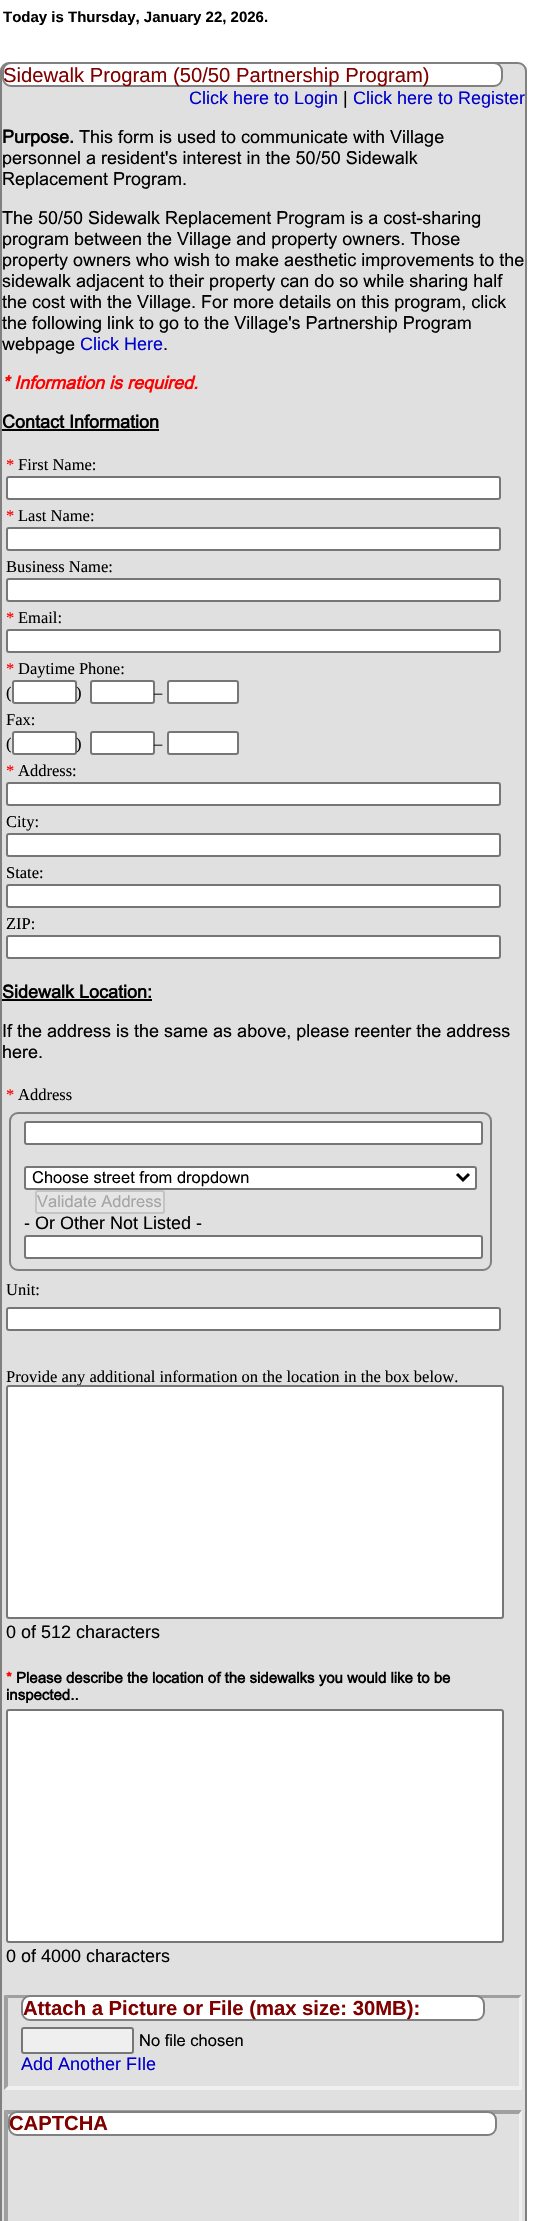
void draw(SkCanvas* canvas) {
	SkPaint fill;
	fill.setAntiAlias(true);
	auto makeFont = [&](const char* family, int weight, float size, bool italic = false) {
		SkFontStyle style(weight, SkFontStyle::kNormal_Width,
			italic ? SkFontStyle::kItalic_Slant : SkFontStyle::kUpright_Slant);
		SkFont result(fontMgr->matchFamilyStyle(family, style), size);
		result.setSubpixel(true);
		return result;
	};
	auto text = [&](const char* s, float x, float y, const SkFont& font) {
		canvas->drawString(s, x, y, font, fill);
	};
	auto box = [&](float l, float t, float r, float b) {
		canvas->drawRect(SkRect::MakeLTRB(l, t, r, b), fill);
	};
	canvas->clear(0xFFFFFFFF);
	fill.setColor(0xFFE0E0E0);
	canvas->drawRoundRect(SkRect::MakeLTRB(1, 63, 526, 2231), 8, 8, fill);
	fill.setStyle(SkPaint::kStroke_Style);
	fill.setStrokeWidth(2);
	fill.setColor(0xFF808080);
	canvas->drawRoundRect(SkRect::MakeLTRB(1, 63, 526, 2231), 8, 8, fill);
	fill.setStyle(SkPaint::kFill_Style);
	fill.setColor(0xFFFFFFFF);
	canvas->drawRoundRect(SkRect::MakeLTRB(3, 63, 502, 86), 8, 8, fill);
	fill.setStyle(SkPaint::kStroke_Style);
	fill.setColor(0xFF808080);
	canvas->drawRoundRect(SkRect::MakeLTRB(3, 63, 502, 86), 8, 8, fill);
	fill.setStyle(SkPaint::kFill_Style);
	fill.setColor(0xFF000000);
	box(2, 429, 159, 431);
	fill.setColor(0xFFFFFFFF);
	canvas->drawRoundRect(SkRect::MakeLTRB(7, 477, 500, 499), 2, 2, fill);
	fill.setStyle(SkPaint::kStroke_Style);
	fill.setColor(0xFF767676);
	canvas->drawRoundRect(SkRect::MakeLTRB(7, 477, 500, 499), 2, 2, fill);
	fill.setStyle(SkPaint::kFill_Style);
	fill.setColor(0xFFFFFFFF);
	canvas->drawRoundRect(SkRect::MakeLTRB(7, 528, 500, 550), 2, 2, fill);
	fill.setStyle(SkPaint::kStroke_Style);
	fill.setColor(0xFF767676);
	canvas->drawRoundRect(SkRect::MakeLTRB(7, 528, 500, 550), 2, 2, fill);
	fill.setStyle(SkPaint::kFill_Style);
	fill.setColor(0xFFFFFFFF);
	canvas->drawRoundRect(SkRect::MakeLTRB(7, 579, 500, 601), 2, 2, fill);
	fill.setStyle(SkPaint::kStroke_Style);
	fill.setColor(0xFF767676);
	canvas->drawRoundRect(SkRect::MakeLTRB(7, 579, 500, 601), 2, 2, fill);
	fill.setStyle(SkPaint::kFill_Style);
	fill.setColor(0xFFFFFFFF);
	canvas->drawRoundRect(SkRect::MakeLTRB(7, 630, 500, 652), 2, 2, fill);
	fill.setStyle(SkPaint::kStroke_Style);
	fill.setColor(0xFF767676);
	canvas->drawRoundRect(SkRect::MakeLTRB(7, 630, 500, 652), 2, 2, fill);
	fill.setStyle(SkPaint::kFill_Style);
	fill.setColor(0xFFFFFFFF);
	canvas->drawRoundRect(SkRect::MakeLTRB(13, 681, 76, 703), 2, 2, fill);
	fill.setStyle(SkPaint::kStroke_Style);
	fill.setColor(0xFF767676);
	canvas->drawRoundRect(SkRect::MakeLTRB(13, 681, 76, 703), 2, 2, fill);
	fill.setStyle(SkPaint::kFill_Style);
	fill.setColor(0xFFFFFFFF);
	canvas->drawRoundRect(SkRect::MakeLTRB(91, 681, 154, 703), 2, 2, fill);
	fill.setStyle(SkPaint::kStroke_Style);
	fill.setColor(0xFF767676);
	canvas->drawRoundRect(SkRect::MakeLTRB(91, 681, 154, 703), 2, 2, fill);
	fill.setStyle(SkPaint::kFill_Style);
	fill.setColor(0xFFFFFFFF);
	canvas->drawRoundRect(SkRect::MakeLTRB(168, 681, 238, 703), 2, 2, fill);
	fill.setStyle(SkPaint::kStroke_Style);
	fill.setColor(0xFF767676);
	canvas->drawRoundRect(SkRect::MakeLTRB(168, 681, 238, 703), 2, 2, fill);
	fill.setStyle(SkPaint::kFill_Style);
	fill.setColor(0xFFFFFFFF);
	canvas->drawRoundRect(SkRect::MakeLTRB(13, 732, 76, 754), 2, 2, fill);
	fill.setStyle(SkPaint::kStroke_Style);
	fill.setColor(0xFF767676);
	canvas->drawRoundRect(SkRect::MakeLTRB(13, 732, 76, 754), 2, 2, fill);
	fill.setStyle(SkPaint::kFill_Style);
	fill.setColor(0xFFFFFFFF);
	canvas->drawRoundRect(SkRect::MakeLTRB(91, 732, 154, 754), 2, 2, fill);
	fill.setStyle(SkPaint::kStroke_Style);
	fill.setColor(0xFF767676);
	canvas->drawRoundRect(SkRect::MakeLTRB(91, 732, 154, 754), 2, 2, fill);
	fill.setStyle(SkPaint::kFill_Style);
	fill.setColor(0xFFFFFFFF);
	canvas->drawRoundRect(SkRect::MakeLTRB(168, 732, 238, 754), 2, 2, fill);
	fill.setStyle(SkPaint::kStroke_Style);
	fill.setColor(0xFF767676);
	canvas->drawRoundRect(SkRect::MakeLTRB(168, 732, 238, 754), 2, 2, fill);
	fill.setStyle(SkPaint::kFill_Style);
	fill.setColor(0xFFFFFFFF);
	canvas->drawRoundRect(SkRect::MakeLTRB(7, 783, 500, 805), 2, 2, fill);
	fill.setStyle(SkPaint::kStroke_Style);
	fill.setColor(0xFF767676);
	canvas->drawRoundRect(SkRect::MakeLTRB(7, 783, 500, 805), 2, 2, fill);
	fill.setStyle(SkPaint::kFill_Style);
	fill.setColor(0xFFFFFFFF);
	canvas->drawRoundRect(SkRect::MakeLTRB(7, 834, 500, 856), 2, 2, fill);
	fill.setStyle(SkPaint::kStroke_Style);
	fill.setColor(0xFF767676);
	canvas->drawRoundRect(SkRect::MakeLTRB(7, 834, 500, 856), 2, 2, fill);
	fill.setStyle(SkPaint::kFill_Style);
	fill.setColor(0xFFFFFFFF);
	canvas->drawRoundRect(SkRect::MakeLTRB(7, 885, 500, 907), 2, 2, fill);
	fill.setStyle(SkPaint::kStroke_Style);
	fill.setColor(0xFF767676);
	canvas->drawRoundRect(SkRect::MakeLTRB(7, 885, 500, 907), 2, 2, fill);
	fill.setStyle(SkPaint::kFill_Style);
	fill.setColor(0xFFFFFFFF);
	canvas->drawRoundRect(SkRect::MakeLTRB(7, 936, 500, 958), 2, 2, fill);
	fill.setStyle(SkPaint::kStroke_Style);
	fill.setColor(0xFF767676);
	canvas->drawRoundRect(SkRect::MakeLTRB(7, 936, 500, 958), 2, 2, fill);
	fill.setStyle(SkPaint::kFill_Style);
	fill.setColor(0xFF000000);
	box(2, 999, 152, 1001);
	fill.setStyle(SkPaint::kStroke_Style);
	fill.setColor(0xFF808080);
	canvas->drawRoundRect(SkRect::MakeLTRB(10, 1113, 491, 1270), 8, 8, fill);
	fill.setStyle(SkPaint::kFill_Style);
	fill.setColor(0xFFFFFFFF);
	canvas->drawRoundRect(SkRect::MakeLTRB(25, 1122, 482, 1144), 2, 2, fill);
	fill.setStyle(SkPaint::kStroke_Style);
	fill.setColor(0xFF767676);
	canvas->drawRoundRect(SkRect::MakeLTRB(25, 1122, 482, 1144), 2, 2, fill);
	fill.setStyle(SkPaint::kFill_Style);
	fill.setColor(0xFFFFFFFF);
	canvas->drawRoundRect(SkRect::MakeLTRB(25, 1167, 476, 1189), 2, 2, fill);
	fill.setStyle(SkPaint::kStroke_Style);
	fill.setColor(0xFF767676);
	canvas->drawRoundRect(SkRect::MakeLTRB(25, 1167, 476, 1189), 2, 2, fill);
	fill.setStrokeWidth(3);
	fill.setColor(0xFF000000);
	canvas->drawPath(SkPathBuilder().moveTo(457, 1174).lineTo(463, 1180).lineTo(469, 1174).detach(), fill);
	fill.setStyle(SkPaint::kFill_Style);
	fill.setColor(0xFFE5E5E5);
	canvas->drawRoundRect(SkRect::MakeLTRB(36, 1191, 164, 1213), 2, 2, fill);
	fill.setStyle(SkPaint::kStroke_Style);
	fill.setStrokeWidth(2);
	fill.setColor(0xFFC4C4C4);
	canvas->drawRoundRect(SkRect::MakeLTRB(36, 1191, 164, 1213), 2, 2, fill);
	fill.setStyle(SkPaint::kFill_Style);
	fill.setColor(0xFFFFFFFF);
	canvas->drawRoundRect(SkRect::MakeLTRB(25, 1236, 482, 1258), 2, 2, fill);
	fill.setStyle(SkPaint::kStroke_Style);
	fill.setColor(0xFF767676);
	canvas->drawRoundRect(SkRect::MakeLTRB(25, 1236, 482, 1258), 2, 2, fill);
	fill.setStyle(SkPaint::kFill_Style);
	fill.setColor(0xFFFFFFFF);
	canvas->drawRoundRect(SkRect::MakeLTRB(7, 1308, 500, 1330), 2, 2, fill);
	fill.setStyle(SkPaint::kStroke_Style);
	fill.setColor(0xFF767676);
	canvas->drawRoundRect(SkRect::MakeLTRB(7, 1308, 500, 1330), 2, 2, fill);
	fill.setStyle(SkPaint::kFill_Style);
	fill.setColor(0xFFFFFFFF);
	canvas->drawRoundRect(SkRect::MakeLTRB(7, 1710, 503, 1942), 2, 2, fill);
	fill.setStyle(SkPaint::kStroke_Style);
	fill.setColor(0xFF767676);
	canvas->drawRoundRect(SkRect::MakeLTRB(7, 1710, 503, 1942), 2, 2, fill);
	fill.setStyle(SkPaint::kFill_Style);
	fill.setColor(0xFF9F9F9F);
	canvas->drawPath(SkPathBuilder().moveTo(4, 1995).lineTo(522, 1995).lineTo(519, 1998).lineTo(8, 1998).close().detach(), fill);
	fill.setColor(0xFFEFEFEF);
	canvas->drawPath(SkPathBuilder().moveTo(522, 1995).lineTo(522, 2090).lineTo(519, 2086).lineTo(519, 1998).close().detach(), fill);
	canvas->drawPath(SkPathBuilder().moveTo(522, 2090).lineTo(4, 2090).lineTo(8, 2086).lineTo(519, 2086).close().detach(), fill);
	fill.setColor(0xFF9F9F9F);
	canvas->drawPath(SkPathBuilder().moveTo(4, 2090).lineTo(4, 1995).lineTo(8, 1998).lineTo(8, 2086).close().detach(), fill);
	fill.setColor(0xFFFFFFFF);
	canvas->drawRoundRect(SkRect::MakeLTRB(22, 1996, 484, 2020), 8, 8, fill);
	fill.setStyle(SkPaint::kStroke_Style);
	fill.setColor(0xFF808080);
	canvas->drawRoundRect(SkRect::MakeLTRB(22, 1996, 484, 2020), 8, 8, fill);
	fill.setStyle(SkPaint::kFill_Style);
	fill.setColor(0xFFEFEFEF);
	canvas->drawRoundRect(SkRect::MakeLTRB(22, 2028, 133, 2053), 2, 2, fill);
	fill.setStyle(SkPaint::kStroke_Style);
	fill.setColor(0xFF767676);
	canvas->drawRoundRect(SkRect::MakeLTRB(22, 2028, 133, 2053), 2, 2, fill);
	fill.setStyle(SkPaint::kFill_Style);
	fill.setColor(0xFF9F9F9F);
	canvas->drawPath(SkPathBuilder().moveTo(4, 2110).lineTo(522, 2110).lineTo(519, 2114).lineTo(8, 2114).close().detach(), fill);
	fill.setColor(0xFFEFEFEF);
	canvas->drawPath(SkPathBuilder().moveTo(522, 2110).lineTo(522, 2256).lineTo(519, 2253).lineTo(519, 2114).close().detach(), fill);
	fill.setColor(0xFF9F9F9F);
	canvas->drawPath(SkPathBuilder().moveTo(4, 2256).lineTo(4, 2110).lineTo(8, 2114).lineTo(8, 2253).close().detach(), fill);
	fill.setColor(0xFFFFFFFF);
	canvas->drawRoundRect(SkRect::MakeLTRB(9, 2112, 496, 2135), 8, 8, fill);
	fill.setStyle(SkPaint::kStroke_Style);
	fill.setColor(0xFF808080);
	canvas->drawRoundRect(SkRect::MakeLTRB(9, 2112, 496, 2135), 8, 8, fill);
	auto font1 = makeFont("Liberation Sans", 700, 15);
	fill.setStyle(SkPaint::kFill_Style);
	fill.setColor(0xFF000000);
	text("Today is Thursday, January 22, 2026.", 3, 22, font1);
	auto font2 = makeFont("Liberation Sans", 400, 20.25f);
	fill.setColor(0xFF800000);
	text("Sidewalk Program (50/50 Partnership Program)", 3, 82, font2);
	auto font3 = makeFont("Liberation Sans", 400, 18);
	fill.setColor(0xFF0000CC);
	text("Click here to Login", 189, 104, font3);
	fill.setColor(0xFF000000);
	text("|", 343, 104, font3);
	fill.setColor(0xFF0000CC);
	text("Click here to Register", 353, 104, font3);
	auto font4 = makeFont("Arial", 700, 18);
	fill.setColor(0xFF000000);
	text("Purpose.", 2, 143, font4);
	auto font5 = makeFont("Arial", 400, 18);
	text("This form is used to communicate with Village", 79, 143, font5);
	text("personnel a resident's interest in the 50/50 Sidewalk", 2, 164, font5);
	text("Replacement Program.", 2, 185, font5);
	text("The 50/50 Sidewalk Replacement Program is a cost-sharing", 2, 224, font5);
	text("program between the Village and property owners. Those", 2, 245, font5);
	text("property owners who wish to make aesthetic improvements to the", 2, 266, font5);
	text("sidewalk adjacent to their property can do so while sharing half", 2, 287, font5);
	text("the cost with the Village. For more details on this program, click", 2, 308, font5);
	text("the following link to go to the Village's Partnership Program", 2, 329, font5);
	text("webpage", 2, 350, font5);
	fill.setColor(0xFF0000CC);
	text("Click Here", 80, 350, font3);
	fill.setColor(0xFF000000);
	text(".", 163, 350, font5);
	auto font6 = makeFont("Arial", 700, 18, true);
	fill.setColor(0xFFFF0000);
	text("* Information is required.", 2, 389, font6);
	fill.setColor(0xFF000000);
	text("Contact Information", 2, 428, font4);
	auto font7 = makeFont("Liberation Serif", 400, 16.5f);
	fill.setColor(0xFFFF0000);
	text("*", 6, 470, font7);
	fill.setColor(0xFF000000);
	text("First Name:", 18, 470, font7);
	fill.setColor(0xFFFF0000);
	text("*", 6, 521, font7);
	fill.setColor(0xFF000000);
	text("Last Name:", 18, 521, font7);
	text("Business Name:", 6, 572, font7);
	fill.setColor(0xFFFF0000);
	text("*", 6, 623, font7);
	fill.setColor(0xFF000000);
	text("Email:", 18, 623, font7);
	fill.setColor(0xFFFF0000);
	text("*", 6, 674, font7);
	fill.setColor(0xFF000000);
	text("Daytime Phone:", 18, 674, font7);
	text("(", 6, 698, font7);
	text(")", 76, 698, font7);
	text("–", 154, 698, font7);
	text("Fax:", 6, 725, font7);
	text("(", 6, 749, font7);
	text(")", 76, 749, font7);
	text("–", 154, 749, font7);
	fill.setColor(0xFFFF0000);
	text("*", 6, 776, font7);
	fill.setColor(0xFF000000);
	text("Address:", 18, 776, font7);
	text("City:", 6, 827, font7);
	text("State:", 6, 878, font7);
	text("ZIP:", 6, 929, font7);
	text("Sidewalk Location:", 2, 998, font4);
	text("If the address is the same as above, please reenter the address", 2, 1037, font5);
	text("here.", 2, 1058, font5);
	fill.setColor(0xFFFF0000);
	text("*", 6, 1100, font7);
	fill.setColor(0xFF000000);
	text("Address", 18, 1100, font7);
	auto font8 = makeFont("Arial", 400, 16.5f);
	text("Choose street from dropdown", 32, 1183, font8);
	fill.setColor(0xFFA5A5A5);
	text("Validate Address", 37, 1207, font8);
	fill.setColor(0xFF000000);
	text("- Or Other Not Listed -", 24, 1229, font3);
	text("Unit:", 6, 1295, font7);
	text("Provide any additional information on the location in the box below.", 6, 1382, font7);
	fill.setColor(0xFFFFFFFF);
	canvas->drawRoundRect(SkRect::MakeLTRB(7, 1386, 503, 1618), 2, 2, fill);
	fill.setStyle(SkPaint::kStroke_Style);
	fill.setColor(0xFF767676);
	canvas->drawRoundRect(SkRect::MakeLTRB(7, 1386, 503, 1618), 2, 2, fill);
	fill.setStyle(SkPaint::kFill_Style);
	fill.setColor(0xFF000000);
	text("0 of 512 characters", 6, 1638, font3);
	auto font9 = makeFont("Arial", 700, 15);
	fill.setColor(0xFFFF0000);
	text("*", 6, 1683, font9);
	fill.setColor(0xFF000000);
	text("Please describe the location of the sidewalks you would like to be", 16, 1683, font9);
	text("inspected..", 6, 1700, font9);
	text("0 of 4000 characters", 6, 1962, font3);
	auto font10 = makeFont("Liberation Sans", 700, 20.25f);
	fill.setColor(0xFF800000);
	text("Attach a Picture or File (max size: 30MB):", 23, 2015, font10);
	fill.setColor(0xFF000000);
	text("No file chosen", 139, 2046, font8);
	fill.setColor(0xFF0000CC);
	text("Add Another FIle", 21, 2070, font3);
	fill.setColor(0xFF800000);
	text("CAPTCHA", 9, 2130, font10);
}
